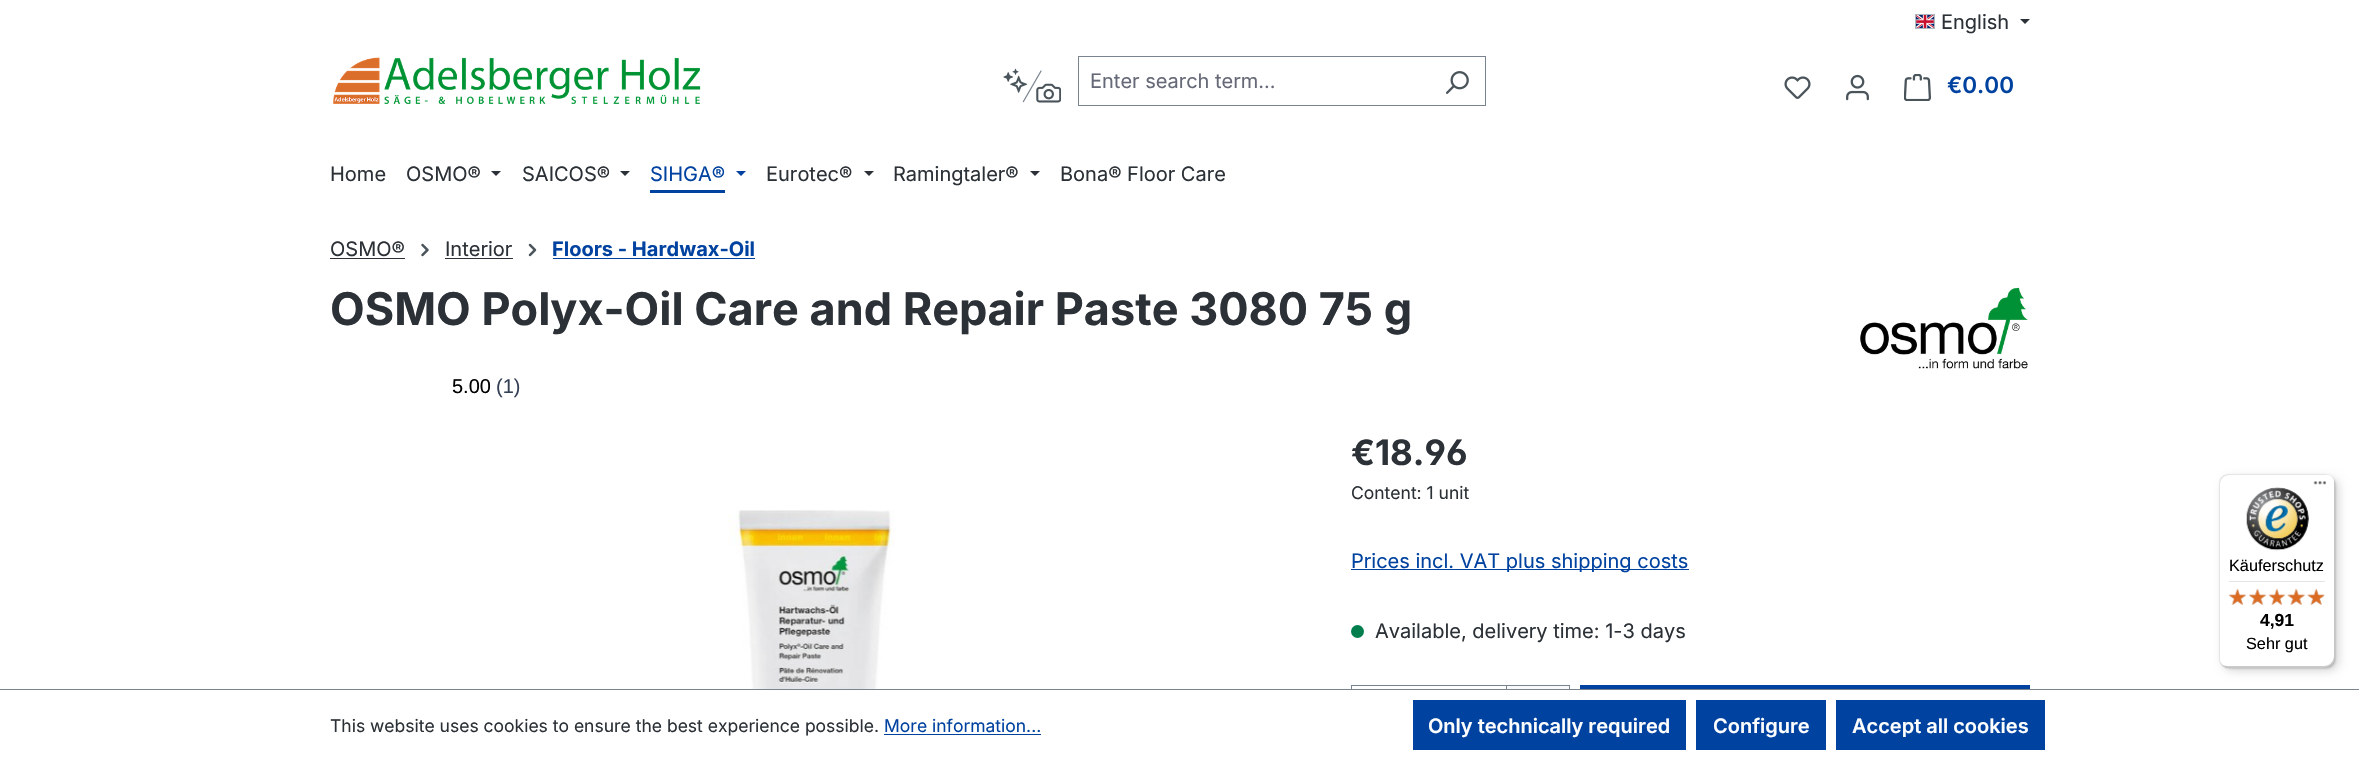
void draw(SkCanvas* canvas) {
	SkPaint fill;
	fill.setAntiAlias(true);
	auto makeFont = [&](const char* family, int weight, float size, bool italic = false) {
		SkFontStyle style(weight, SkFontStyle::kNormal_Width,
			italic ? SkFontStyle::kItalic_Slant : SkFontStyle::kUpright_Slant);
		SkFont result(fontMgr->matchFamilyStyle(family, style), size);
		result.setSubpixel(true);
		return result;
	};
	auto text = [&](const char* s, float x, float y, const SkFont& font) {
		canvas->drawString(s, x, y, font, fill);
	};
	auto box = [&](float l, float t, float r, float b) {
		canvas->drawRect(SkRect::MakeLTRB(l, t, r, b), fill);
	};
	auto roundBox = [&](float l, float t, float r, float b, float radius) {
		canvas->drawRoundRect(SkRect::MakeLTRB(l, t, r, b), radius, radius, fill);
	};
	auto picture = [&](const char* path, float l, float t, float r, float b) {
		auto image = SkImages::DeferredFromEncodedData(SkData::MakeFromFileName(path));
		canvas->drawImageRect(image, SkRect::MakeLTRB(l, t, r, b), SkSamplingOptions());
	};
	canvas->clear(0xFFFFFFFF);
	picture("image0.png", 1916, 15, 1934, 28);
	fill.setStyle(SkPaint::kStroke_Style);
	fill.setStrokeWidth(1);
	fill.setColor(0xFFADB5BD);
	canvas->drawRect(SkRect::MakeLTRB(1915.5f, 14.5f, 1934.5f, 28.5f), fill);
	fill.setStyle(SkPaint::kFill_Style);
	fill.setColor(0xFF2B3136);
	canvas->drawPath(SkPathBuilder().moveTo(2020, 19).lineTo(2030, 19).lineTo(2025, 24).close().detach(), fill);
	picture("image1.png", 333, 57, 701, 104);
	picture("image2.png", 1003, 68, 1061, 103);
	fill.setColor(0xFF798490);
	box(1078, 56, 1486, 57);
	box(1078, 105, 1429, 106);
	box(1078, 56, 1079, 106);
	box(1485, 56, 1486, 106);
	box(1428, 105, 1486, 106);
	picture("image3.png", 1446, 71, 1469, 94);
	picture("image4.png", 1784, 76, 1811, 99);
	picture("image5.png", 1846, 74, 1869, 101);
	picture("image6.png", 1904, 74, 1931, 101);
	fill.setColor(0xFF2B3136);
	canvas->drawPath(SkPathBuilder().moveTo(491, 171).lineTo(501, 171).lineTo(496, 176).close().detach(), fill);
	canvas->drawPath(SkPathBuilder().moveTo(620, 171).lineTo(630, 171).lineTo(625, 176).close().detach(), fill);
	fill.setColor(0xFF0042A0);
	box(650, 190, 725, 193);
	canvas->drawPath(SkPathBuilder().moveTo(736, 171).lineTo(746, 171).lineTo(741, 176).close().detach(), fill);
	fill.setColor(0xFF2B3136);
	canvas->drawPath(SkPathBuilder().moveTo(864, 171).lineTo(874, 171).lineTo(869, 176).close().detach(), fill);
	canvas->drawPath(SkPathBuilder().moveTo(1030, 171).lineTo(1040, 171).lineTo(1035, 176).close().detach(), fill);
	box(330, 258, 405, 259);
	picture("image7.png", 421, 243, 429, 257);
	box(445, 258, 513, 259);
	picture("image8.png", 528, 243, 537, 257);
	fill.setColor(0xFF0042A0);
	box(553, 258, 755, 259);
	picture("image9.png", 1860, 287, 2028, 369);
	picture("image10.png", 727, 510, 895, 689);
	box(1351, 569, 1689, 570);
	fill.setColor(0xFF007E4E);
	canvas->drawCircle(1357.5f, 631.5f, 6.5f, fill);
	fill.setColor(0xFFF9F9F9);
	box(1507, 686, 1569, 689);
	fill.setStyle(SkPaint::kStroke_Style);
	fill.setColor(0xFF798490);
	canvas->drawRect(SkRect::MakeLTRB(1506.5f, 685.5f, 1569.5f, 734.5f), fill);
	fill.setStyle(SkPaint::kFill_Style);
	box(1351, 685, 1508, 686);
	box(1351, 685, 1352, 689);
	fill.setColor(0xFF0042A0);
	box(1580, 685, 2030, 689);
	fill.setColor(0x26000000);
	fill.setMaskFilter(SkMaskFilter::MakeBlur(kNormal_SkBlurStyle, 5));
	canvas->drawRoundRect(SkRect::MakeLTRB(2223, 478, 2339, 671), 10, 10, fill);
	fill.setMaskFilter(nullptr);
	fill.setMaskFilter(SkMaskFilter::MakeBlur(kNormal_SkBlurStyle, 1));
	canvas->drawRoundRect(SkRect::MakeLTRB(2220, 475, 2336, 669), 10, 10, fill);
	fill.setMaskFilter(nullptr);
	fill.setColor(0xFFFFFFFF);
	roundBox(2219, 474, 2335, 668, 10);
	fill.setColor(0xFFE5E5E5);
	canvas->drawPath(SkPathBuilder().moveTo(2230, 475).lineTo(2326, 475).cubicTo(2328, 475, 2330, 475, 2331, 476).cubicTo(2330, 475, 2327, 474, 2325, 474).lineTo(2229, 474).cubicTo(2223, 474, 2219, 478, 2219, 484).lineTo(2219, 658).cubicTo(2219, 661, 2220, 664, 2223, 666).cubicTo(2221, 664, 2220, 661, 2220, 659).lineTo(2220, 485).cubicTo(2220, 479, 2224, 475, 2230, 475).close().detach(), fill);
	fill.setColor(0x33000000);
	canvas->drawPath(SkPathBuilder().moveTo(2220, 662).cubicTo(2222, 666, 2225, 668, 2229, 668).lineTo(2325, 668).cubicTo(2331, 668, 2335, 664, 2335, 658).lineTo(2335, 484).cubicTo(2335, 482, 2334, 480, 2333, 478).cubicTo(2334, 479, 2334, 481, 2334, 482).lineTo(2334, 656).cubicTo(2334, 662, 2329, 666, 2324, 666).lineTo(2228, 666).cubicTo(2225, 666, 2222, 665, 2220, 662).close().detach(), fill);
	fill.setColor(0x33323232);
	canvas->drawPath(SkPathBuilder().moveTo(2221, 665).cubicTo(2223, 667, 2226, 668, 2229, 668).lineTo(2325, 668).cubicTo(2331, 668, 2335, 664, 2335, 658).lineTo(2335, 484).cubicTo(2335, 482, 2334, 479, 2333, 478).cubicTo(2334, 479, 2334, 481, 2334, 483).lineTo(2334, 657).cubicTo(2334, 662, 2330, 667, 2324, 667).lineTo(2228, 667).cubicTo(2225, 667, 2223, 666, 2221, 665).close().detach(), fill);
	fill.setColor(0x4DFFFFFF);
	canvas->drawPath(SkPathBuilder().moveTo(2220, 663).cubicTo(2222, 666, 2225, 668, 2229, 668).lineTo(2325, 668).cubicTo(2331, 668, 2335, 664, 2335, 658).lineTo(2335, 484).cubicTo(2335, 481, 2334, 478, 2331, 476).cubicTo(2333, 478, 2334, 481, 2334, 483).lineTo(2334, 657).cubicTo(2334, 662, 2330, 667, 2324, 667).lineTo(2228, 667).cubicTo(2225, 667, 2222, 665, 2220, 663).close().detach(), fill);
	picture("image11.png", 2313, 481, 2326, 485);
	picture("image12.png", 2246, 487, 2309, 551);
	fill.setColor(0xFFE5E5E5);
	box(2229, 581, 2325, 582);
	picture("image18.png", 2229, 589, 2246, 605);
	picture("image13.png", 2228, 588, 2246, 605);
	picture("image19.png", 2249, 589, 2266, 605);
	picture("image14.png", 2248, 588, 2267, 605);
	picture("image20.png", 2269, 589, 2285, 605);
	picture("image15.png", 2268, 588, 2285, 605);
	picture("image21.png", 2287, 589, 2305, 605);
	picture("image16.png", 2287, 588, 2305, 605);
	picture("image22.png", 2307, 589, 2325, 605);
	picture("image17.png", 2307, 588, 2324, 605);
	fill.setColor(0xFFFFFFFF);
	box(1506, 690, 1570, 735);
	fill.setColor(0xFF798490);
	box(0, 689, 2359, 690);
	fill.setColor(0xFF0042A0);
	box(884, 734, 1041, 735);
	box(1413, 700, 1686, 750);
	box(1696, 700, 1826, 750);
	box(1836, 700, 2045, 750);
	auto font1 = makeFont("Inter", 400, 20);
	fill.setColor(0xFF2B3136);
	text("English", 1941, 29, font1);
	fill.setColor(0xFF666977);
	text("Enter search term...", 1090, 88, font1);
	auto font2 = makeFont("Inter", 600, 22.5f);
	fill.setColor(0xFF0042A0);
	text("€0.00", 1947, 93, font2);
	fill.setColor(0xFF2B3136);
	text("Home", 330, 181, font1);
	text("OSMO®", 406, 181, font1);
	text("SAICOS®", 522, 181, font1);
	fill.setColor(0xFF0042A0);
	text("SIHGA®", 650, 181, font1);
	fill.setColor(0xFF2B3136);
	text("Eurotec®", 766, 181, font1);
	text("Ramingtaler®", 893, 181, font1);
	text("Bona® Floor Care", 1060, 181, font1);
	text("OSMO®", 330, 256, font1);
	text("Interior", 445, 256, font1);
	auto font3 = makeFont("Inter", 700, 20);
	fill.setColor(0xFF0042A0);
	text("Floors - Hardwax-Oil", 552, 256, font3);
	auto font4 = makeFont("Inter", 700, 45);
	fill.setColor(0xFF2B3136);
	text("OSMO Polyx-Oil Care and Repair Paste 3080 75 g", 330, 325, font4);
	auto font5 = makeFont("Liberation Sans", 400, 20);
	fill.setColor(0xFF000000);
	text("5.00", 452, 393, font5);
	fill.setColor(0xFF344054);
	text("(1)", 496, 393, font5);
	auto font6 = makeFont("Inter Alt", 700, 35);
	fill.setColor(0xFF2B3136);
	text("€18.96", 1351, 465, font6);
	auto font7 = makeFont("Inter", 400, 17.5f);
	text("Content: 1 unit", 1351, 499, font7);
	fill.setColor(0xFF0042A0);
	text("Prices incl. VAT plus shipping costs", 1351, 568, font1);
	fill.setColor(0xFF2B3136);
	text("Available, delivery time: 1-3 days", 1375, 638, font1);
	auto font8 = makeFont("Liberation Sans", 400, 16.25f);
	fill.setColor(0xFF000000);
	text("Käuferschutz", 2229, 571, font8);
	auto font9 = makeFont("Liberation Sans", 700, 17.5f);
	text("4,91", 2260, 626, font9);
	text("Sehr gut", 2246, 649, font8);
	fill.setColor(0xFF2B3136);
	text("This website uses cookies to ensure the best experience possible.", 330, 732, font7);
	fill.setColor(0xFF0042A0);
	text("More information...", 884, 732, font7);
	auto font10 = makeFont("Inter", 600, 20);
	fill.setColor(0xFFFFFFFF);
	text("Only technically required", 1428, 733, font10);
	text("Configure", 1713, 733, font10);
	text("Accept all cookies", 1852, 733, font10);
}
